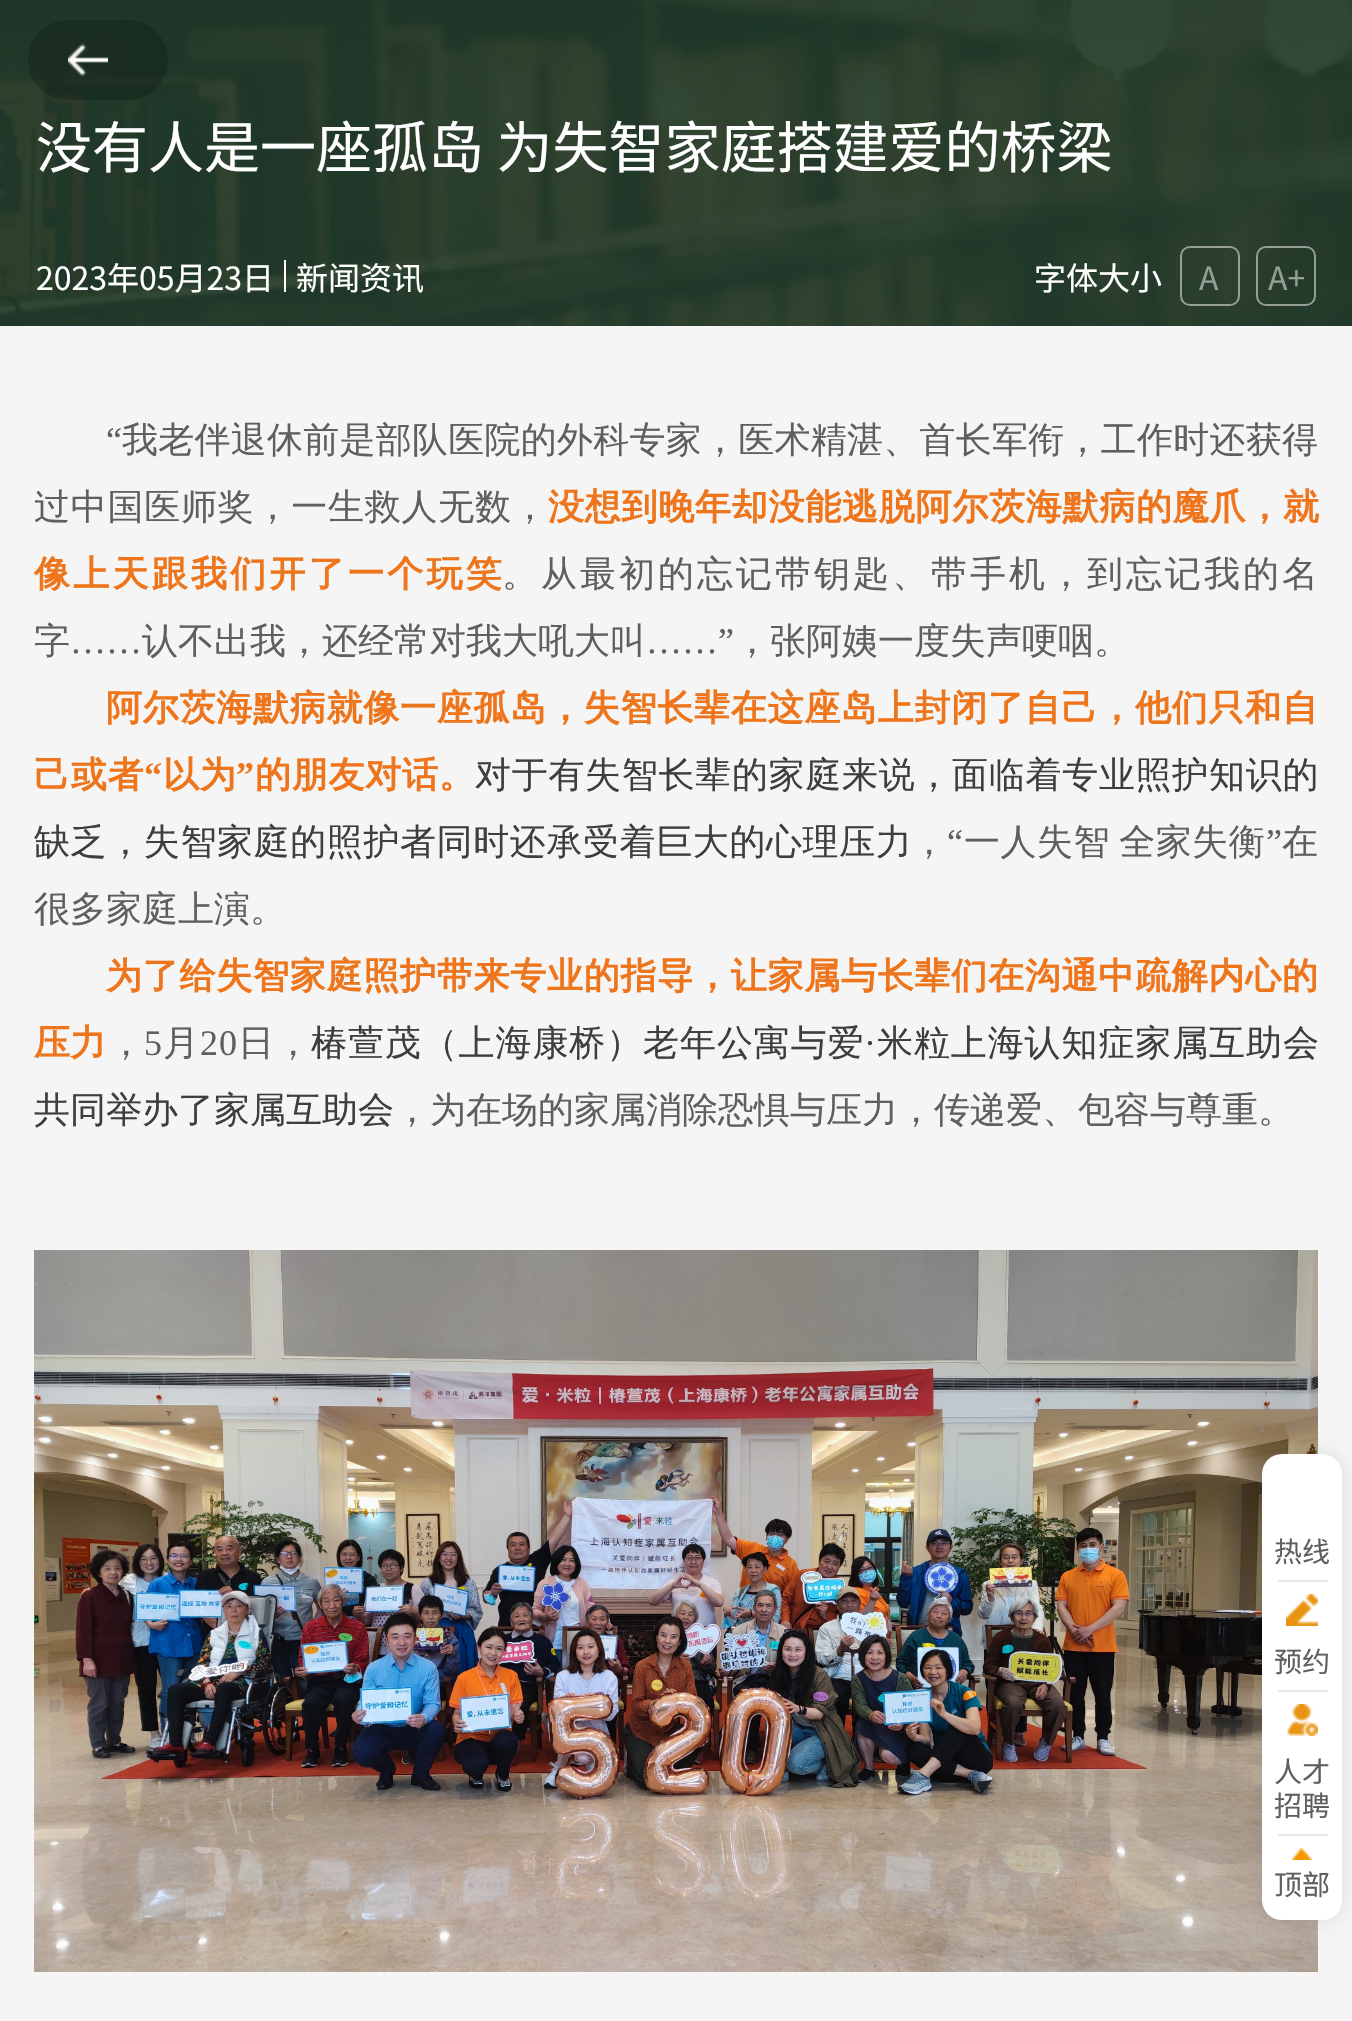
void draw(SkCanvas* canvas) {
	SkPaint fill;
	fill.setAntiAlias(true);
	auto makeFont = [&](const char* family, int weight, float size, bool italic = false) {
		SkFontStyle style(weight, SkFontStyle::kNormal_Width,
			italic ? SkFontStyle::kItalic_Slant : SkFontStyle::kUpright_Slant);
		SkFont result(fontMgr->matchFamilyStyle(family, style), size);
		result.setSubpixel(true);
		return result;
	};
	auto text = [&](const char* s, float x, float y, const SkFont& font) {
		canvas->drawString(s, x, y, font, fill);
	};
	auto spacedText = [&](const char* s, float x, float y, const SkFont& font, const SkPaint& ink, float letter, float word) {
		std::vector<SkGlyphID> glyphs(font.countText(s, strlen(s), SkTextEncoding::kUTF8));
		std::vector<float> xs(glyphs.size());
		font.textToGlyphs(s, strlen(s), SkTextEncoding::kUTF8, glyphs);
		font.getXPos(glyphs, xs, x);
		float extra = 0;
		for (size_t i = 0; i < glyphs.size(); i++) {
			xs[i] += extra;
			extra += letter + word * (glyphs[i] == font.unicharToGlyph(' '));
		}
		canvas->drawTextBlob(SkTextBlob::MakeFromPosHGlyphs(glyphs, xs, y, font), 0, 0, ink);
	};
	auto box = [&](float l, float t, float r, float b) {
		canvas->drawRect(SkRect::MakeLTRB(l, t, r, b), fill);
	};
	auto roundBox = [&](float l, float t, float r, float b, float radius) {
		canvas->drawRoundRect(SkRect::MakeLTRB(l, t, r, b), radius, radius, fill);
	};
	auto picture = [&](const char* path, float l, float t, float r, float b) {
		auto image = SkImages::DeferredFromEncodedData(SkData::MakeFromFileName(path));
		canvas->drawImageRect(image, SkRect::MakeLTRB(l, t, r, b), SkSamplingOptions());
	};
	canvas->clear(0xFFF5F5F5);
	picture("image0.png", 0, 0, 1352, 326);
	fill.setColor(0x33000000);
	roundBox(28, 20, 168, 100, 40);
	picture("image1.png", 68, 43, 108, 77);
	fill.setColor(0xFFFFFFFF);
	box(284, 260, 286, 292);
	fill.setStyle(SkPaint::kStroke_Style);
	fill.setStrokeWidth(2);
	fill.setColor(0x80FFFFFF);
	canvas->drawRoundRect(SkRect::MakeLTRB(1181, 247, 1239, 305), 9, 9, fill);
	canvas->drawRoundRect(SkRect::MakeLTRB(1257, 247, 1315, 305), 9, 9, fill);
	picture("image2.png", 34, 1250, 1318, 1972);
	fill.setStyle(SkPaint::kFill_Style);
	fill.setColor(0x1A000000);
	fill.setMaskFilter(SkMaskFilter::MakeBlur(kNormal_SkBlurStyle, 10));
	canvas->drawRoundRect(SkRect::MakeLTRB(1262, 1454, 1342, 1920), 20, 20, fill);
	fill.setMaskFilter(nullptr);
	fill.setColor(0xFFFFFFFF);
	roundBox(1262, 1454, 1342, 1920, 20);
	fill.setColor(0xFFE6E6E6);
	box(1278, 1580, 1328, 1582);
	picture("image3.png", 1286, 1594, 1318, 1626);
	box(1278, 1690, 1328, 1692);
	picture("image4.png", 1287, 1704, 1318, 1736);
	box(1278, 1834, 1328, 1836);
	picture("image5.png", 1292, 1848, 1312, 1860);
	auto font1 = makeFont("Noto Sans SC", 400, 56);
	fill.setColor(0xFFFFFFFF);
	text("没有人是一座孤岛 为失智家庭搭建爱的桥梁", 36, 168, font1);
	auto font2 = makeFont("Noto Sans SC", 400, 32);
	text("2023年05月23日", 36, 290, font2);
	text("新闻资讯", 296, 290, font2);
	text("字体大小", 1034, 290, font2);
	fill.setColor(0xFF949E96);
	text("A", 1199, 290, font2);
	text("A+", 1268, 290, font2);
	auto font3 = makeFont("Liberation Serif", 400, 36);
	fill.setColor(0xFF5F5F5F);
	spacedText("“", 106, 452, font3, fill, 0.25f, 0);
	auto font4 = makeFont("WenQuanYi Zen Hei", 500, 36);
	spacedText("我老伴退休前是部队医院的外科专家，医术精湛、首长军衔，工作时还获得", 122, 452, font4, fill, 0.25f, 0);
	spacedText("过中国医师奖，一生救人无数，", 34, 519, font4, fill, 0.75f, 0);
	auto font5 = makeFont("WenQuanYi Zen Hei", 700, 36);
	fill.setColor(0xFFEE751B);
	spacedText("没想到晚年却没能逃脱阿尔茨海默病的魔爪，就", 548, 519, font5, fill, 0.75f, 0);
	spacedText("像上天跟我们开了一个玩笑", 34, 586, font5, fill, 3.25f, 0);
	fill.setColor(0xFF5F5F5F);
	spacedText("。从最初的忘记带钥匙、带手机，到忘记我的名", 502, 586, font4, fill, 3, 0);
	text("字", 34, 653, font4);
	text("……", 70, 653, font3);
	text("认不出我，还经常对我大吼大叫", 142, 653, font4);
	text("……”", 646, 653, font3);
	text("，张阿姨一度失声哽咽。", 734, 653, font4);
	fill.setColor(0xFFEE751B);
	spacedText("阿尔茨海默病就像一座孤岛，失智长辈在这座岛上封闭了自己，他们只和自", 106, 720, font5, fill, 0.75f, 0);
	spacedText("己或者", 34, 787, font5, fill, 0.75f, 0);
	auto font6 = makeFont("Liberation Serif", 700, 36);
	spacedText("“", 144, 787, font6, fill, 0.75f, 0);
	spacedText("以为", 163, 787, font5, fill, 0.75f, 0);
	spacedText("”", 236, 787, font6, fill, 0.75f, 0);
	spacedText("的朋友对话。", 255, 787, font5, fill, 0.75f, 0);
	fill.setColor(0xFF3E3E3E);
	spacedText("对于有失智长辈的家庭来说，面临着专业照护知识的", 475, 787, font4, fill, 0.7f, 0);
	spacedText("缺乏，失智家庭的照护者同时还承受着巨大的心理压力", 34, 854, font4, fill, 0.6f, 0);
	fill.setColor(0xFF5F5F5F);
	spacedText("“", 947, 854, font3, fill, 0.5f, 0);
	spacedText("一人失智 全家失衡", 964, 854, font4, fill, 0.5f, -2);
	spacedText("”", 1266, 854, font3, fill, 0.5f, 0);
	spacedText("在", 1282, 854, font4, fill, 0.5f, 0);
	spacedText("，", 911, 854, font4, fill, 0.5f, 0);
	text("很多家庭上演。", 34, 921, font4);
	fill.setColor(0xFFEE751B);
	spacedText("为了给失智家庭照护带来专业的指导，让家属与长辈们在沟通中疏解内心的", 106, 988, font5, fill, 0.75f, 0);
	text("压力", 34, 1055, font5);
	fill.setColor(0xFF5F5F5F);
	spacedText("5", 144, 1055, font3, fill, 0.9f, 0);
	spacedText("月", 163, 1055, font4, fill, 0.9f, 0);
	spacedText("20", 200, 1055, font3, fill, 0.9f, 0);
	spacedText("日，", 238, 1055, font4, fill, 0.9f, 0);
	fill.setColor(0xFF3E3E3E);
	spacedText("椿萱茂（上海康桥）老年公寓与爱", 311, 1055, font4, fill, 0.9f, 0);
	spacedText("·", 864, 1055, font3, fill, 0.9f, 0);
	spacedText("米粒上海认知症家属互助会", 877, 1055, font4, fill, 0.9f, 0);
	fill.setColor(0xFF5F5F5F);
	spacedText("，", 108, 1055, font4, fill, 0.9f, 0);
	fill.setColor(0xFF3E3E3E);
	text("共同举办了家属互助会", 34, 1122, font4);
	fill.setColor(0xFF5F5F5F);
	text("，为在场的家属消除恐惧与压力，传递爱、包容与尊重。", 394, 1122, font4);
	auto font7 = makeFont("Noto Sans SC", 400, 28);
	text("热线", 1274, 1562, font7);
	text("预约", 1274, 1672, font7);
	text("人才", 1274, 1782, font7);
	text("招聘", 1274, 1816, font7);
	text("顶部", 1274, 1895, font7);
}
